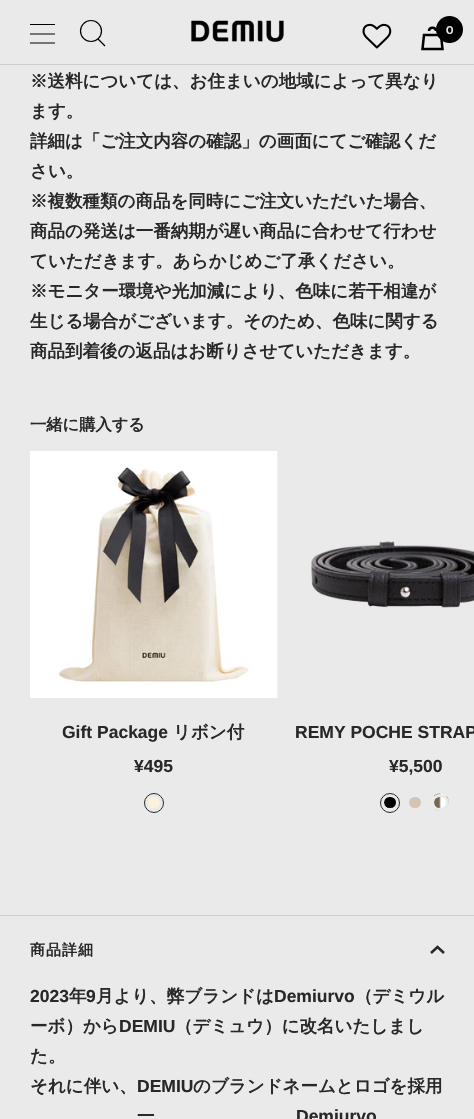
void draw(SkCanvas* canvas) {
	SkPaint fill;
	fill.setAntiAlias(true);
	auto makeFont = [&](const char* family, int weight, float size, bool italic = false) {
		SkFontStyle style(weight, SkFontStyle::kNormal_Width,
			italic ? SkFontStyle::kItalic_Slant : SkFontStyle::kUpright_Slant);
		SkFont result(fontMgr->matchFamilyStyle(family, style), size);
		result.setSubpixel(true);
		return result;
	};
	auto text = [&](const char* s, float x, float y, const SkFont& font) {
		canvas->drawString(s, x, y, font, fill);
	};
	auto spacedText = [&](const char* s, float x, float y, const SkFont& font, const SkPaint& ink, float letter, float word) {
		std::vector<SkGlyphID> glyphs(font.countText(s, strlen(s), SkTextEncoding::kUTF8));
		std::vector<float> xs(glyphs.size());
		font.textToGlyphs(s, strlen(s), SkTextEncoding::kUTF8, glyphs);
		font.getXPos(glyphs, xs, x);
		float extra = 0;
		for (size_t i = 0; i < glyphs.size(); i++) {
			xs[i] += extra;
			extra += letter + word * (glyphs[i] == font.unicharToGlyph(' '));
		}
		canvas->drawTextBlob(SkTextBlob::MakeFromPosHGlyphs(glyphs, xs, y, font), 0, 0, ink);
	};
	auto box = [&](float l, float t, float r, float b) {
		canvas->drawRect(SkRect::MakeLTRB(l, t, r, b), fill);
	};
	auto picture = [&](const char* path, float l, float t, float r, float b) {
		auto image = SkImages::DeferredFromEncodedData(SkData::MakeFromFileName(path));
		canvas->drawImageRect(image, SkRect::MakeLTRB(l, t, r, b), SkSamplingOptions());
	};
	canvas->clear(0xFFEAEAEA);
	fill.setColor(0xFFCDCDCD);
	box(0, 64, 474, 65);
	fill.setColor(0xFF000000);
	box(30, 24, 55, 25);
	fill.setStyle(SkPaint::kStroke_Style);
	fill.setStrokeWidth(1.2f);
	canvas->drawPath(SkPathBuilder().moveTo(30, 34).lineTo(55, 34).moveTo(30, 43).lineTo(55, 43).detach(), fill);
	canvas->drawCircle(91, 31, 10.5f, fill);
	canvas->drawPath(SkPathBuilder().moveTo(98, 39).lineTo(105, 46).detach(), fill);
	picture("image0.png", 191, 20, 284, 42);
	picture("image1.png", 362, 23, 392, 49);
	fill.setStrokeWidth(2.5f);
	canvas->drawPath(SkPathBuilder().moveTo(424, 35).lineTo(441, 35).lineTo(442.5f, 49).lineTo(422.5f, 49).close().moveTo(436, 31).cubicTo(436, 26.5f, 429, 26.5f, 429, 31).detach(), fill);
	fill.setStyle(SkPaint::kFill_Style);
	canvas->drawCircle(449.5f, 29.5f, 13.5f, fill);
	picture("image2.png", 30, 451, 278, 698);
	fill.setColor(0xFFFCF2DC);
	canvas->drawRoundRect(SkRect::MakeLTRB(146.5f, 795.5f, 161.5f, 809.5f), 7, 7, fill);
	fill.setStyle(SkPaint::kStroke_Style);
	fill.setStrokeWidth(3);
	fill.setColor(0xFFEAEAEA);
	canvas->drawRoundRect(SkRect::MakeLTRB(146.5f, 795.5f, 161.5f, 809.5f), 7, 7, fill);
	fill.setStrokeWidth(1);
	canvas->drawCircle(153.5f, 802.5f, 7, fill);
	fill.setColor(0xFF282828);
	canvas->drawCircle(154, 803, 9.5f, fill);
	picture("image3.png", 311, 541, 474, 608);
	fill.setStyle(SkPaint::kFill_Style);
	fill.setColor(0xFF000000);
	canvas->drawRoundRect(SkRect::MakeLTRB(382.5f, 795.5f, 397.5f, 809.5f), 7, 7, fill);
	fill.setStyle(SkPaint::kStroke_Style);
	fill.setStrokeWidth(3);
	fill.setColor(0xFFEAEAEA);
	canvas->drawRoundRect(SkRect::MakeLTRB(382.5f, 795.5f, 397.5f, 809.5f), 7, 7, fill);
	fill.setStrokeWidth(1);
	canvas->drawCircle(390.5f, 802.5f, 7, fill);
	fill.setColor(0xFF282828);
	canvas->drawCircle(390, 803, 9.5f, fill);
	fill.setStyle(SkPaint::kFill_Style);
	fill.setColor(0xFFD5C4B4);
	canvas->drawRoundRect(SkRect::MakeLTRB(407.5f, 795.5f, 422.5f, 809.5f), 7, 7, fill);
	fill.setStyle(SkPaint::kStroke_Style);
	fill.setStrokeWidth(3);
	fill.setColor(0xFFEAEAEA);
	canvas->drawRoundRect(SkRect::MakeLTRB(407.5f, 795.5f, 422.5f, 809.5f), 7, 7, fill);
	fill.setStrokeWidth(1);
	canvas->drawCircle(415.5f, 802.5f, 7, fill);
	picture("image4.png", 431, 793, 449, 811);
	fill.setStrokeWidth(3);
	canvas->drawRoundRect(SkRect::MakeLTRB(432.5f, 795.5f, 447.5f, 809.5f), 7, 7, fill);
	fill.setStrokeWidth(1);
	canvas->drawCircle(440.5f, 802.5f, 7, fill);
	fill.setStyle(SkPaint::kFill_Style);
	fill.setColor(0xFFCDCDCD);
	box(0, 915, 474, 916);
	fill.setStyle(SkPaint::kStroke_Style);
	fill.setStrokeWidth(2.5f);
	fill.setColor(0xFF282828);
	canvas->drawPath(SkPathBuilder().moveTo(444, 953).lineTo(437.5f, 947).lineTo(431, 953).detach(), fill);
	auto font1 = makeFont("Instrument Sans", 600, 11);
	fill.setStyle(SkPaint::kFill_Style);
	fill.setColor(0xFFEAEAEA);
	text("0", 446, 34, font1);
	auto font2 = makeFont("WenQuanYi Zen Hei", 700, 17.5f);
	fill.setColor(0xFF282828);
	text("※送料については、お住まいの地域によって異なり", 30, 87, font2);
	text("ます。", 30, 117, font2);
	text("詳細は「ご注文内容の確認」の画面にてご確認くだ", 30, 147, font2);
	text("さい。", 30, 177, font2);
	text("※複数種類の商品を同時にご注文いただいた場合、", 30, 207, font2);
	text("商品の発送は一番納期が遅い商品に合わせて行わせ", 30, 237, font2);
	text("ていただきます。あらかじめご了承ください。", 30, 267, font2);
	text("※モニター環境や光加減により、色味に若干相違が", 30, 297, font2);
	text("生じる場合がございます。そのため、色味に関する", 30, 327, font2);
	text("商品到着後の返品はお断りさせていただきます。", 30, 357, font2);
	auto font3 = makeFont("WenQuanYi Zen Hei", 700, 16.25f);
	text("一緒に購入する", 30, 430, font3);
	auto font4 = makeFont("Liberation Sans", 700, 17.5f);
	text("Gift Package", 62, 738, font4);
	text("リボン付", 173, 738, font2);
	text("¥495", 134, 772, font4);
	text("REMY POCHE STRAP", 295, 738, font4);
	text("¥5,500", 389, 772, font4);
	auto font5 = makeFont("WenQuanYi Zen Hei", 700, 15);
	spacedText("商品詳細", 30, 955, font5, fill, 1, 0);
	text("2023", 30, 1002, font4);
	text("年", 69, 1002, font2);
	text("9", 86, 1002, font4);
	text("月より、弊ブランドは", 96, 1002, font2);
	text("Demiurvo", 274, 1002, font4);
	text("（デミウル", 355, 1002, font2);
	text("ーボ）から", 30, 1032, font2);
	text("DEMIU", 119, 1032, font4);
	text("（デミュウ）に改名いたしまし", 175, 1032, font2);
	text("た。", 30, 1062, font2);
	text("それに伴い、", 30, 1092, font2);
	text("DEMIU", 137, 1092, font4);
	text("のブランドネームとロゴを採用", 193, 1092, font2);
	text("一", 137, 1122, font2);
	text("Demiurvo", 296, 1122, font4);
}
